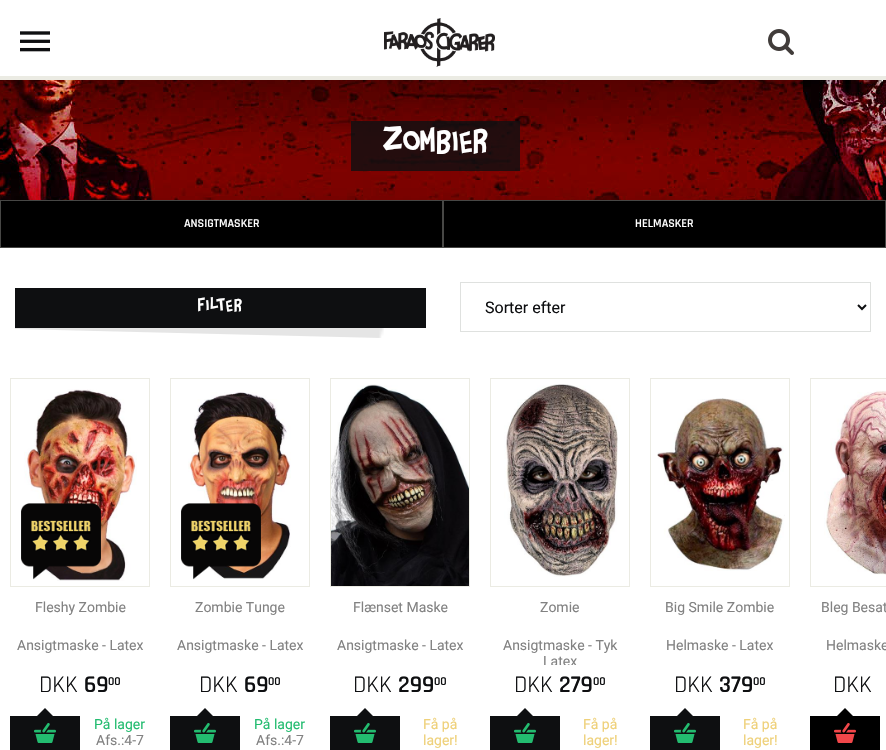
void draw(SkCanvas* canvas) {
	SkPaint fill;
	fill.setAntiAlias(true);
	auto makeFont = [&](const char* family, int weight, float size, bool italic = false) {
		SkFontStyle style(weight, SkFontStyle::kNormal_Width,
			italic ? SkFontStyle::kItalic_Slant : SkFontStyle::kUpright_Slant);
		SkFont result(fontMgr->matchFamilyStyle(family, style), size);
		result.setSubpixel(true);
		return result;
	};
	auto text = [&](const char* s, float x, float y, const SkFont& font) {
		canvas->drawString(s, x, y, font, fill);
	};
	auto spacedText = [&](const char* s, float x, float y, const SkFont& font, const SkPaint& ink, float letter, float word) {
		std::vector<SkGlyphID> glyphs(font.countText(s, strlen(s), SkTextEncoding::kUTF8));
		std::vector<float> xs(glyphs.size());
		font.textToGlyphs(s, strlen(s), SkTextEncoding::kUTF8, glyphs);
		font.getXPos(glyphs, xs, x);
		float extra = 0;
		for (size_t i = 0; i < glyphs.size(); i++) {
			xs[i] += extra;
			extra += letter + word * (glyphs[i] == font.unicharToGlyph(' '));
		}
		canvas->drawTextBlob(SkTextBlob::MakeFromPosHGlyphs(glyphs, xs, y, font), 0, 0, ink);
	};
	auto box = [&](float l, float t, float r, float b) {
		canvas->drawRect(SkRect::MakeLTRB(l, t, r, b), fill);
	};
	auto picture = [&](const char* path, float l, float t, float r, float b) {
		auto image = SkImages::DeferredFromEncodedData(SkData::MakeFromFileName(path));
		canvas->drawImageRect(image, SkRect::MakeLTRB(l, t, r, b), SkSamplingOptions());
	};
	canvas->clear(0xFFFFFFFF);
	picture("image0.png", 384, 18, 495, 67);
	fill.setColor(0xFFEBEBE3);
	box(0, 76, 886, 80);
	picture("image1.png", 20, 31, 50, 52);
	picture("image2.png", 768, 29, 794, 55);
	picture("image3.png", 0, 80, 886, 200);
	fill.setColor(0xCC0E0F11);
	box(351, 121, 520, 171);
	fill.setColor(0xFF000000);
	canvas->drawRect(SkRect::MakeLTRB(0.5f, 200.5f, 442.5f, 247.5f), fill);
	fill.setStyle(SkPaint::kStroke_Style);
	fill.setStrokeWidth(1);
	fill.setColor(0xFF474745);
	canvas->drawRect(SkRect::MakeLTRB(0.5f, 200.5f, 442.5f, 247.5f), fill);
	fill.setStyle(SkPaint::kFill_Style);
	fill.setColor(0xFF000000);
	canvas->drawRect(SkRect::MakeLTRB(443.5f, 200.5f, 885.5f, 247.5f), fill);
	fill.setStyle(SkPaint::kStroke_Style);
	fill.setColor(0xFF474745);
	canvas->drawRect(SkRect::MakeLTRB(443.5f, 200.5f, 885.5f, 247.5f), fill);
	picture("image4.png", 15, 328, 384, 338);
	fill.setStyle(SkPaint::kFill_Style);
	fill.setColor(0xFF0E0F11);
	box(15, 288, 426, 328);
	fill.setStyle(SkPaint::kStroke_Style);
	fill.setColor(0xFFDFE1DF);
	canvas->drawRect(SkRect::MakeLTRB(460.5f, 282.5f, 870.5f, 331.5f), fill);
	fill.setStrokeWidth(2);
	fill.setColor(0xFF0E0F11);
	canvas->drawPath(SkPathBuilder().moveTo(858, 305).lineTo(862, 309).lineTo(866, 305).detach(), fill);
	fill.setStrokeWidth(1);
	fill.setColor(0xFFEBEBE3);
	canvas->drawRect(SkRect::MakeLTRB(10.5f, 378.5f, 149.5f, 586.5f), fill);
	picture("image5.png", 24, 389, 137, 581);
	picture("image6.png", 21, 503, 101, 580);
	fill.setStyle(SkPaint::kFill_Style);
	fill.setColor(0xFF0E0F11);
	canvas->drawPath(SkPathBuilder().moveTo(53, 716).lineTo(37, 716).lineTo(45, 708).close().detach(), fill);
	box(10, 716, 80, 750);
	picture("image7.png", 34, 723, 56, 743);
	fill.setStyle(SkPaint::kStroke_Style);
	fill.setColor(0xFFEBEBE3);
	canvas->drawRect(SkRect::MakeLTRB(170.5f, 378.5f, 309.5f, 586.5f), fill);
	picture("image8.png", 188, 392, 291, 579);
	picture("image9.png", 181, 503, 261, 580);
	fill.setStyle(SkPaint::kFill_Style);
	fill.setColor(0xFF0E0F11);
	canvas->drawPath(SkPathBuilder().moveTo(213, 716).lineTo(197, 716).lineTo(205, 708).close().detach(), fill);
	box(170, 716, 240, 750);
	picture("image7.png", 194, 723, 216, 743);
	fill.setStyle(SkPaint::kStroke_Style);
	fill.setColor(0xFFEBEBE3);
	canvas->drawRect(SkRect::MakeLTRB(330.5f, 378.5f, 469.5f, 586.5f), fill);
	picture("image10.png", 331, 384, 469, 586);
	fill.setStyle(SkPaint::kFill_Style);
	fill.setColor(0xFF0E0F11);
	canvas->drawPath(SkPathBuilder().moveTo(373, 716).lineTo(357, 716).lineTo(365, 708).close().detach(), fill);
	box(330, 716, 400, 750);
	picture("image7.png", 354, 723, 376, 743);
	fill.setStyle(SkPaint::kStroke_Style);
	fill.setColor(0xFFEBEBE3);
	canvas->drawRect(SkRect::MakeLTRB(490.5f, 378.5f, 629.5f, 586.5f), fill);
	picture("image11.png", 504, 384, 618, 577);
	fill.setStyle(SkPaint::kFill_Style);
	fill.setColor(0xFF0E0F11);
	canvas->drawPath(SkPathBuilder().moveTo(533, 716).lineTo(517, 716).lineTo(525, 708).close().detach(), fill);
	box(490, 716, 560, 750);
	picture("image7.png", 514, 723, 536, 743);
	fill.setStyle(SkPaint::kStroke_Style);
	fill.setColor(0xFFEBEBE3);
	canvas->drawRect(SkRect::MakeLTRB(650.5f, 378.5f, 789.5f, 586.5f), fill);
	picture("image12.png", 657, 398, 785, 571);
	fill.setStyle(SkPaint::kFill_Style);
	fill.setColor(0xFF0E0F11);
	canvas->drawPath(SkPathBuilder().moveTo(693, 716).lineTo(677, 716).lineTo(685, 708).close().detach(), fill);
	box(650, 716, 720, 750);
	picture("image7.png", 674, 723, 696, 743);
	fill.setStyle(SkPaint::kStroke_Style);
	fill.setColor(0xFFEBEBE3);
	canvas->drawRect(SkRect::MakeLTRB(810.5f, 378.5f, 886.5f, 586.5f), fill);
	picture("image13.png", 824, 390, 886, 575);
	fill.setStyle(SkPaint::kFill_Style);
	fill.setColor(0xFF000000);
	canvas->drawPath(SkPathBuilder().moveTo(853, 716).lineTo(837, 716).lineTo(845, 708).close().detach(), fill);
	box(810, 716, 880, 750);
	picture("image14.png", 834, 723, 856, 743);
	auto font1 = makeFont("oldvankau", 400, 34);
	fill.setColor(0xFFFFFFFF);
	spacedText("Zombier", 383, 154, font1, fill, 2, 0);
	auto font2 = makeFont("Rajdhani", 600, 12);
	text("ANSIGTMASKER", 184, 227, font2);
	text("HELMASKER", 635, 227, font2);
	auto font3 = makeFont("oldvankau", 400, 18);
	spacedText("Filter", 198, 312, font3, fill, 2, 0);
	auto font4 = makeFont("Roboto", 400, 16);
	fill.setColor(0xFF0E0F11);
	text("Sorter efter", 485, 313, font4);
	auto font5 = makeFont("Roboto", 400, 14);
	fill.setColor(0xFF828282);
	text("Fleshy Zombie", 35, 612, font5);
	text("Ansigtmaske - Latex", 17, 650, font5);
	auto font6 = makeFont("Rajdhani", 400, 24);
	fill.setColor(0xFF0E0F11);
	text("DKK", 39, 692, font6);
	auto font7 = makeFont("Rajdhani", 600, 24);
	text("69", 84, 692, font7);
	text("00", 108, 685, font2);
	fill.setColor(0xFF23BC70);
	text("På lager", 94, 729, font5);
	fill.setColor(0xFF828282);
	text("Afs.:4-7", 96, 745, font5);
	text("Zombie Tunge", 195, 612, font5);
	text("Ansigtmaske - Latex", 177, 650, font5);
	fill.setColor(0xFF0E0F11);
	text("DKK", 199, 692, font6);
	text("69", 244, 692, font7);
	text("00", 268, 685, font2);
	fill.setColor(0xFF23BC70);
	text("På lager", 254, 729, font5);
	fill.setColor(0xFF828282);
	text("Afs.:4-7", 256, 745, font5);
	text("Flænset Maske", 353, 612, font5);
	text("Ansigtmaske - Latex", 337, 650, font5);
	fill.setColor(0xFF0E0F11);
	text("DKK", 353, 692, font6);
	text("299", 398, 692, font7);
	text("00", 434, 685, font2);
	fill.setColor(0xFFEFD17A);
	text("Få på", 423, 729, font5);
	text("lager!", 423, 745, font5);
	fill.setColor(0xFF828282);
	text("Zomie", 540, 612, font5);
	text("Ansigtmaske - Tyk", 503, 650, font5);
	canvas->save();
	canvas->clipRect(SkRect::MakeLTRB(490, 633, 630, 665));
	text("Latex", 543, 666, font5);
	canvas->restore();
	fill.setColor(0xFF0E0F11);
	text("DKK", 514, 692, font6);
	text("279", 559, 692, font7);
	text("00", 593, 685, font2);
	fill.setColor(0xFFEFD17A);
	text("Få på", 583, 729, font5);
	text("lager!", 583, 745, font5);
	fill.setColor(0xFF828282);
	text("Big Smile Zombie", 665, 612, font5);
	text("Helmaske - Latex", 666, 650, font5);
	fill.setColor(0xFF0E0F11);
	text("DKK", 674, 692, font6);
	text("379", 719, 692, font7);
	text("00", 753, 685, font2);
	fill.setColor(0xFFEFD17A);
	text("Få på", 743, 729, font5);
	text("lager!", 743, 745, font5);
	fill.setColor(0xFF828282);
	text("Bleg Besat", 821, 612, font5);
	text("Helmaske", 826, 650, font5);
	fill.setColor(0xFF0E0F11);
	text("DKK", 833, 692, font6);
}
